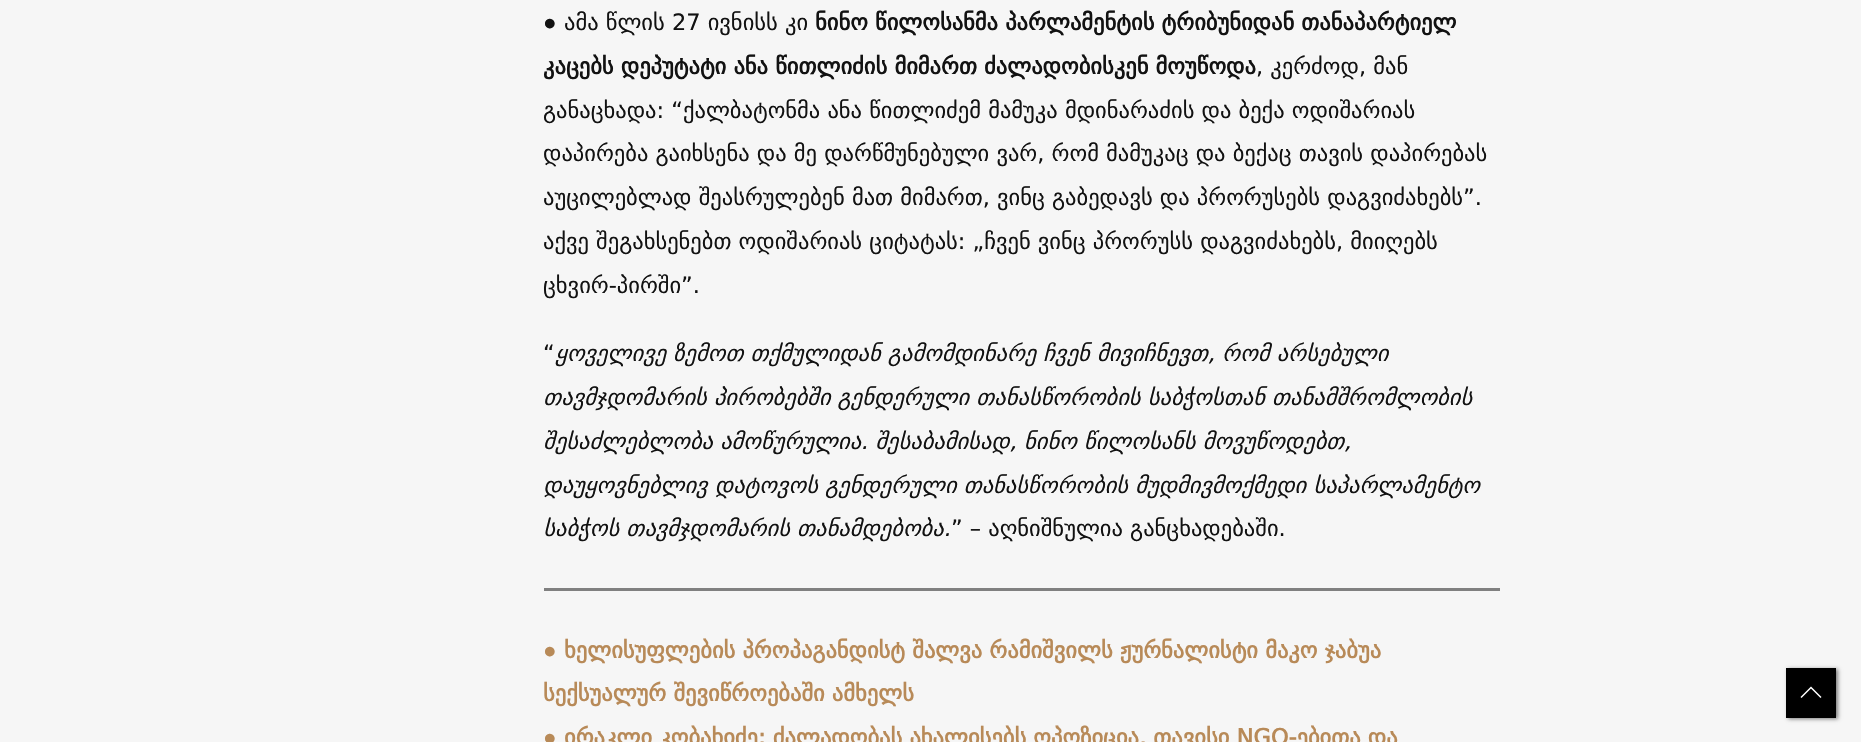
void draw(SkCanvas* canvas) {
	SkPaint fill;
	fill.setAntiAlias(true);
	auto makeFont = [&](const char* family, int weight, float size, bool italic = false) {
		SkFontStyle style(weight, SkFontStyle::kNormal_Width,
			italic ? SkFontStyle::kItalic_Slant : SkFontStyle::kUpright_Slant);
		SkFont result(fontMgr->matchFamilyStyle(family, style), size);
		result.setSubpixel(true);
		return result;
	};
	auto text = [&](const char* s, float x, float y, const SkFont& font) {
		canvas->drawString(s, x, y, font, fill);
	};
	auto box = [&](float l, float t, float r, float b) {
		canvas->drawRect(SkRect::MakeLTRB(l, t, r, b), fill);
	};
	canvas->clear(0xFFF6F6F6);
	fill.setColor(0xFF808080);
	box(544, 588, 1500, 591);
	fill.setColor(0x80000000);
	fill.setMaskFilter(SkMaskFilter::MakeBlur(kNormal_SkBlurStyle, 2));
	canvas->drawRect(SkRect::MakeLTRB(1788, 669, 1838, 719), fill);
	fill.setMaskFilter(nullptr);
	fill.setColor(0xFF000000);
	box(1786, 668, 1836, 718);
	fill.setStyle(SkPaint::kStroke_Style);
	fill.setStrokeWidth(1.5f);
	fill.setColor(0xFFFFFFFF);
	canvas->drawPath(SkPathBuilder().moveTo(1801, 697.5f).lineTo(1811, 687.5f).lineTo(1821, 697.5f).detach(), fill);
	auto font1 = makeFont("Liberation Serif", 400, 22.5f);
	fill.setStyle(SkPaint::kFill_Style);
	fill.setColor(0xFF121212);
	text("●", 543, 30, font1);
	auto font2 = makeFont("DejaVu Sans", 400, 22.5f);
	text("ამა წლის 27 ივნისს კი", 564, 30, font2);
	auto font3 = makeFont("DejaVu Sans", 700, 22.5f);
	text("ნინო წილოსანმა პარლამენტის ტრიბუნიდან თანაპარტიელ", 815, 30, font3);
	text("კაცებს დეპუტატი ანა წითლიძის მიმართ ძალადობისკენ მოუწოდა", 543, 74, font3);
	text(", კერძოდ, მან", 1256, 74, font2);
	text("განაცხადა: “ქალბატონმა ანა წითლიძემ მამუკა მდინარაძის და ბექა ოდიშარიას", 543, 118, font2);
	text("დაპირება გაიხსენა და მე დარწმუნებული ვარ, რომ მამუკაც და ბექაც თავის დაპირებას", 543, 161, font2);
	text("აუცილებლად შეასრულებენ მათ მიმართ, ვინც გაბედავს და პრორუსებს დაგვიძახებს”.", 543, 205, font2);
	text("აქვე შეგახსენებთ ოდიშარიას ციტატას: „ჩვენ ვინც პრორუსს დაგვიძახებს, მიიღებს", 543, 249, font2);
	text("ცხვირ-პირში”.", 543, 293, font2);
	text("“", 543, 361, font2);
	auto font4 = makeFont("DejaVu Sans", 400, 22.5f, true);
	text("ყოველივე ზემოთ თქმულიდან გამომდინარე ჩვენ მივიჩნევთ, რომ არსებული", 555, 361, font4);
	text("თავმჯდომარის პირობებში გენდერული თანასწორობის საბჭოსთან თანამშრომლობის", 543, 405, font4);
	text("შესაძლებლობა ამოწურულია. შესაბამისად, ნინო წილოსანს მოვუწოდებთ,", 543, 449, font4);
	text("დაუყოვნებლივ დატოვოს გენდერული თანასწორობის მუდმივმოქმედი საპარლამენტო", 543, 493, font4);
	text("საბჭოს თავმჯდომარის თანამდებობა.", 543, 536, font4);
	text("” – აღნიშნულია განცხადებაში.", 951, 536, font2);
	auto font5 = makeFont("Liberation Serif", 700, 22.5f);
	fill.setColor(0xFFB88A58);
	text("●", 543, 658, font5);
	text("ხელისუფლების პროპაგანდისტ შალვა რამიშვილს ჟურნალისტი მაკო ჯაბუა", 564, 658, font3);
	text("სექსუალურ შევიწროებაში ამხელს", 543, 701, font3);
	text("●", 543, 745, font5);
	text("ირაკლი კობახიძე: ძალადობას ახალისებს ოპოზიცია, თავისი NGO-ებითა და", 564, 745, font3);
}
